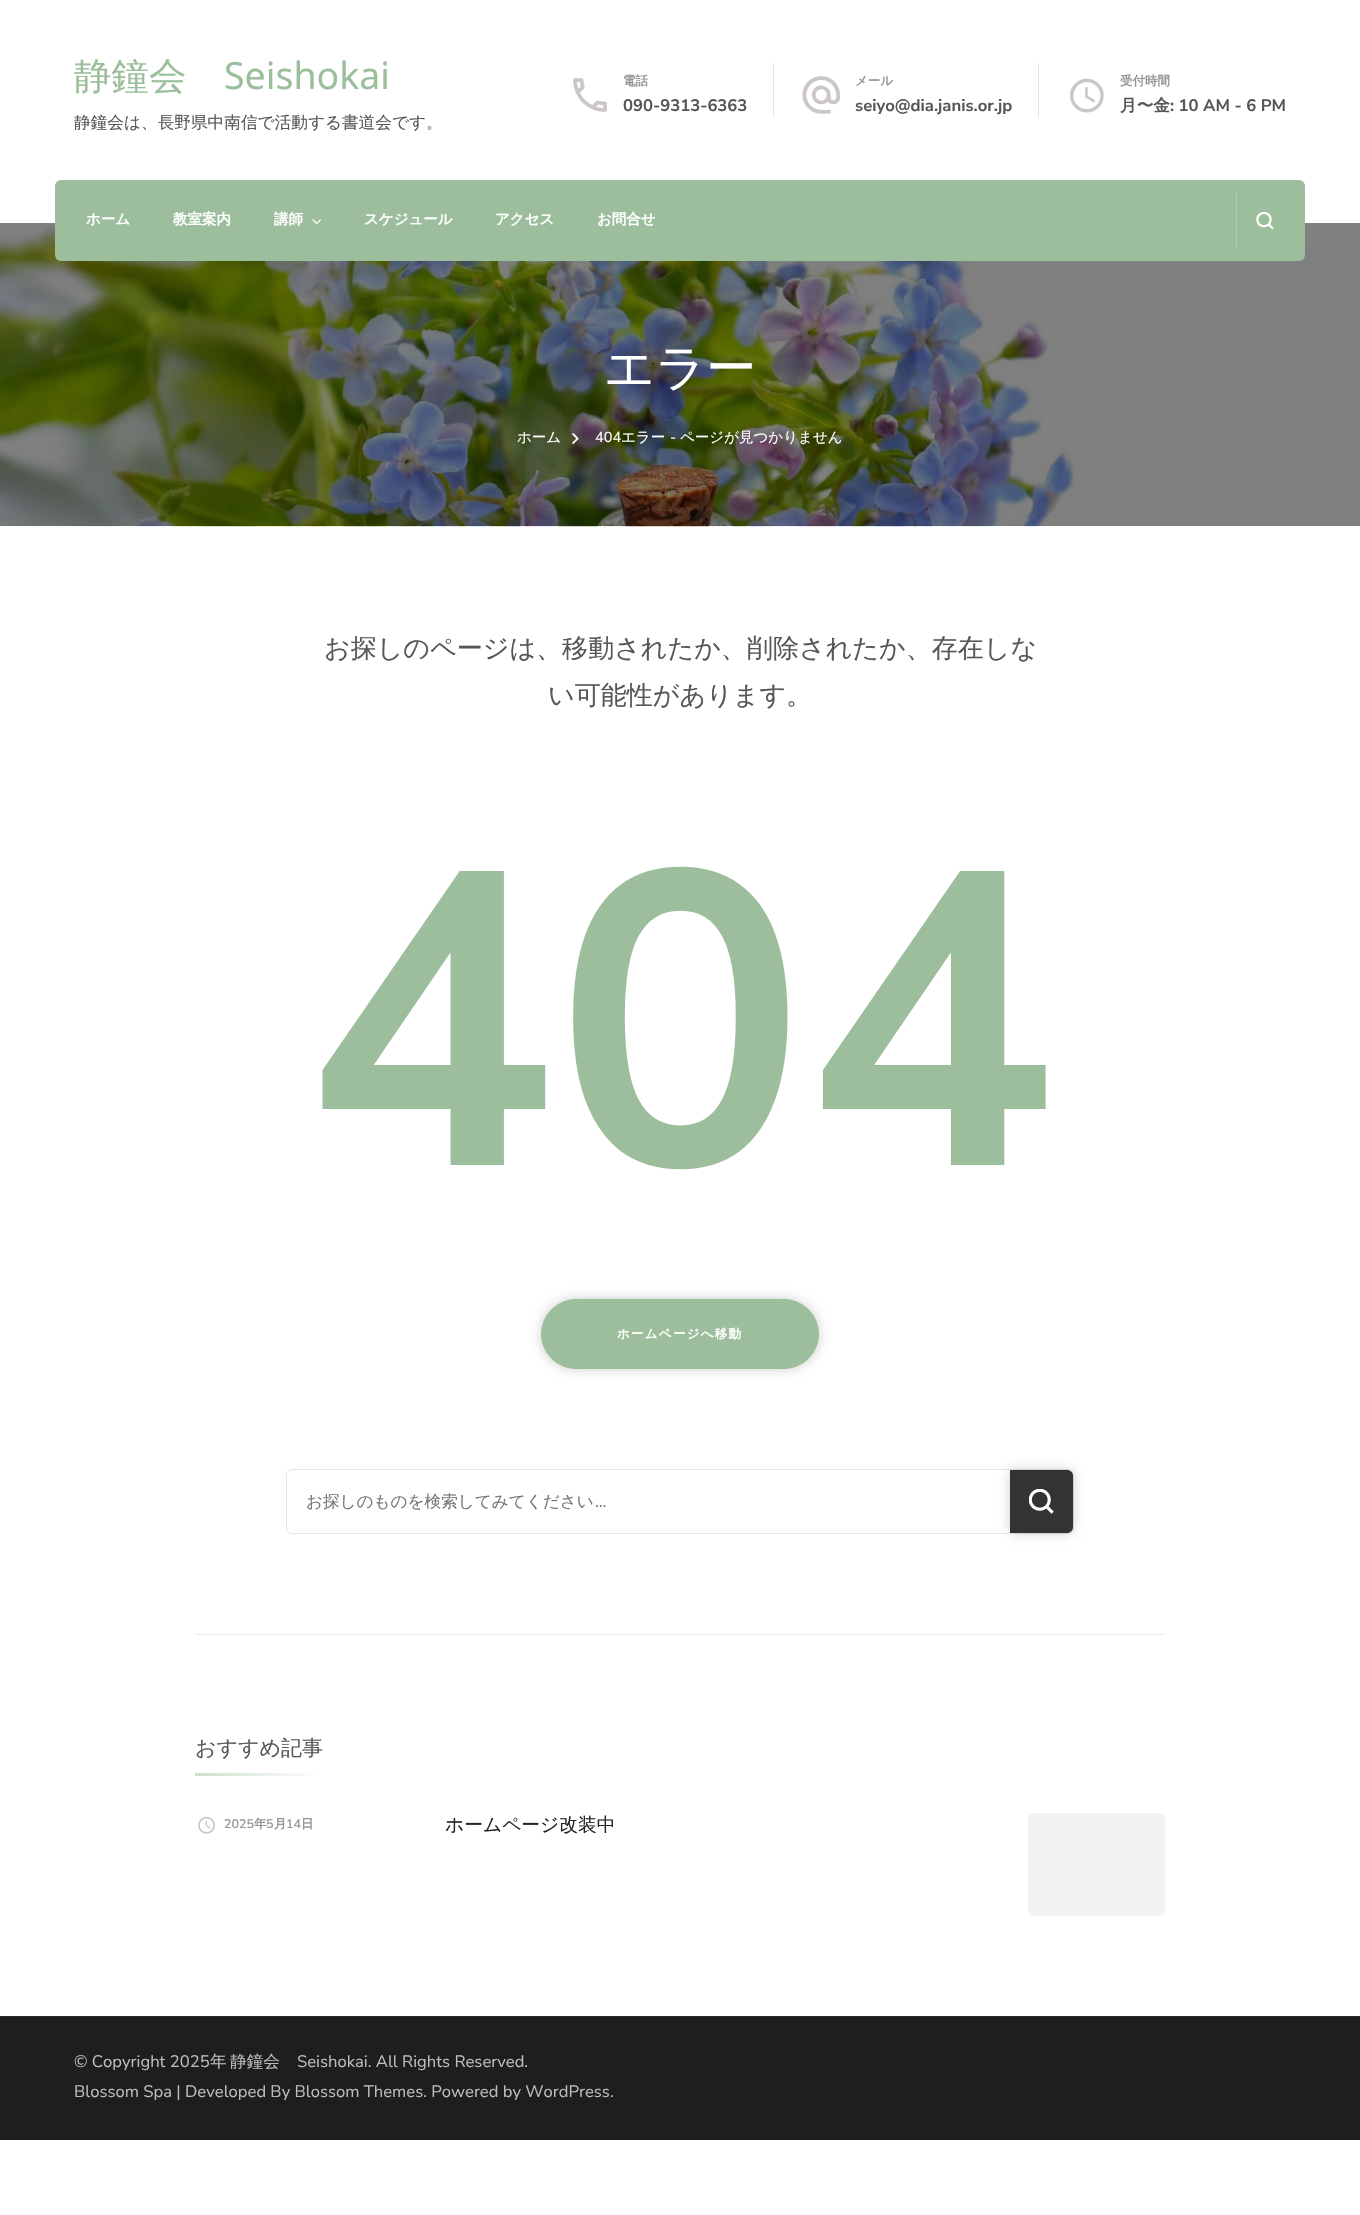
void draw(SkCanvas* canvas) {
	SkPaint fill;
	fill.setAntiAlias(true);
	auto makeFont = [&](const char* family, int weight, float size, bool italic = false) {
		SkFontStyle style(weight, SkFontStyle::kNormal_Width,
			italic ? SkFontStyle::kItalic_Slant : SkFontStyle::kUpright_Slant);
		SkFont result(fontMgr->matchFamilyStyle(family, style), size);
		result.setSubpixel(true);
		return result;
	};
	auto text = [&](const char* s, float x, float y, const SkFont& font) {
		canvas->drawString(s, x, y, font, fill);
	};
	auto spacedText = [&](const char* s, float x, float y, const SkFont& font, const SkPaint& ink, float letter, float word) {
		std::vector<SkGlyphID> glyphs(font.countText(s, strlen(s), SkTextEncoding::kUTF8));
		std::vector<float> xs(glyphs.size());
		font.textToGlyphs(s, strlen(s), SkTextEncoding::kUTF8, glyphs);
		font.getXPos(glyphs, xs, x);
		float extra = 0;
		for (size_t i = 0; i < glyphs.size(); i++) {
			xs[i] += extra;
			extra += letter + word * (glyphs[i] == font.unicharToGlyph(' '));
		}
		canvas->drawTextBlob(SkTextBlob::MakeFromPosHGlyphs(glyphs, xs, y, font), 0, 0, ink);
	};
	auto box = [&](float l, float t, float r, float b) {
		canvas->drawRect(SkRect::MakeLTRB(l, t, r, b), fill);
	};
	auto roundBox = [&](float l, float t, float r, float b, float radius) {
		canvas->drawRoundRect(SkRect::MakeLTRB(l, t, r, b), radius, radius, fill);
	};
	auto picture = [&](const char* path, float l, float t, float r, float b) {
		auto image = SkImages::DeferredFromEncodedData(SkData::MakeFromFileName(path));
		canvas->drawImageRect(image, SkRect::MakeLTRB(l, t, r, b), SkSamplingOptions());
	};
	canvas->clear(0xFFFFFFFF);
	fill.setColor(0xFF808080);
	box(1077, 223, 1360, 526);
	picture("image0.png", 573, 78, 607, 112);
	fill.setColor(0xFFE6E6E6);
	box(773, 63, 774, 118);
	picture("image1.png", 802, 76, 840, 114);
	box(1038, 63, 1039, 118);
	picture("image2.png", 1070, 78, 1104, 113);
	picture("image5.png", 0, 222, 1077, 527);
	fill.setColor(0xFF9CBE9C);
	roundBox(55, 180, 1305, 261, 6);
	picture("image3.png", 312, 219, 321, 225);
	fill.setColor(0xFFB0CBB0);
	box(1236, 193, 1237, 249);
	picture("image4.png", 1256, 211, 1274, 230);
	picture("image6.png", 572, 433, 579, 444);
	fill.setColor(0x33000000);
	fill.setMaskFilter(SkMaskFilter::MakeBlur(kNormal_SkBlurStyle, 6));
	canvas->drawRoundRect(SkRect::MakeLTRB(541, 1299, 819, 1369), 35, 35, fill);
	fill.setMaskFilter(nullptr);
	fill.setColor(0xFF9CBE9C);
	canvas->drawRoundRect(SkRect::MakeLTRB(541.5f, 1299.5f, 818.5f, 1368.5f), 34.5f, 34.5f, fill);
	fill.setStyle(SkPaint::kStroke_Style);
	fill.setStrokeWidth(1);
	canvas->drawRoundRect(SkRect::MakeLTRB(541.5f, 1299.5f, 818.5f, 1368.5f), 34.5f, 34.5f, fill);
	fill.setColor(0xFFE6E6E6);
	canvas->drawRoundRect(SkRect::MakeLTRB(286.5f, 1469.5f, 1073.5f, 1533.5f), 5.5f, 5.5f, fill);
	fill.setStyle(SkPaint::kFill_Style);
	fill.setColor(0x33000000);
	fill.setMaskFilter(SkMaskFilter::MakeBlur(kNormal_SkBlurStyle, 6));
	canvas->drawRoundRect(SkRect::MakeLTRB(1010, 1470, 1073, 1533), 6, 6, fill);
	fill.setMaskFilter(nullptr);
	fill.setColor(0xFF333333);
	canvas->drawPath(SkPathBuilder().moveTo(1010, 1470).lineTo(1067, 1470).cubicTo(1070.5f, 1470, 1073, 1472.5f, 1073, 1476).lineTo(1073, 1527).cubicTo(1073, 1530.5f, 1070.5f, 1533, 1067, 1533).lineTo(1010, 1533).close().detach(), fill);
	picture("image7.png", 1029, 1489, 1054, 1514);
	fill.setColor(0xFFEBEBEB);
	box(195, 1634, 1165, 1635);
	{
		const SkColor colors[] = {0xFFCEDFCE, 0xFFFFFFFF};
		const float stops[] = {0, 1};
		const SkPoint ends[] = {{195, 1774}, {323, 1774}};
		fill.setShader(SkGradientShader::MakeLinear(ends, colors, stops, 2, SkTileMode::kClamp));
		fill.setAlpha(255);
	}
	box(195, 1773, 323, 1776);
	picture("image8.png", 198, 1816, 215, 1834);
	fill.setShader(nullptr);
	fill.setColor(0xFFF2F2F2);
	roundBox(1028, 1813, 1165, 1916, 6);
	fill.setColor(0xFF1E1E1E);
	box(0, 2017, 1360, 2140);
	fill.setColor(0xFF292929);
	box(0, 2016, 1360, 2017);
	auto font1 = makeFont("WenQuanYi Zen Hei", 500, 37.5f);
	fill.setColor(0xFF9CBE9C);
	text("静鐘会", 74, 89, font1);
	auto font2 = makeFont("Noto Sans Inscriptional Parthian", 400, 37.5f);
	text("Seishokai", 224, 89, font2);
	auto font3 = makeFont("WenQuanYi Zen Hei", 500, 16.65f);
	fill.setColor(0xFF585656);
	text("静鐘会は、長野県中南信で活動する書道会です。", 74, 128, font3);
	auto font4 = makeFont("WenQuanYi Zen Hei", 700, 12.5f);
	fill.setColor(0xFF999596);
	text("電話", 623, 85, font4);
	auto font5 = makeFont("Nunito Sans", 700, 16.65f);
	fill.setColor(0xFF585656);
	text("090-9313-6363", 623, 111, font5);
	fill.setColor(0xFF999596);
	text("メール", 855, 85, font4);
	fill.setColor(0xFF585656);
	text("seiyo@dia.janis.or.jp", 855, 111, font5);
	fill.setColor(0xFF999596);
	text("受付時間", 1120, 85, font4);
	auto font6 = makeFont("WenQuanYi Zen Hei", 700, 16.65f);
	fill.setColor(0xFF585656);
	text("月〜金", 1120, 111, font6);
	text(": 10 AM - 6 PM", 1170, 111, font5);
	auto font7 = makeFont("WenQuanYi Zen Hei", 700, 14.5f);
	fill.setColor(0xFFFFFFFF);
	text("ホーム", 86, 224, font7);
	text("教室案内", 173, 224, font7);
	text("講師", 274, 224, font7);
	text("スケジュール", 364, 224, font7);
	text("アクセス", 495, 224, font7);
	text("お問合せ", 597, 224, font7);
	auto font8 = makeFont("WenQuanYi Zen Hei", 500, 50);
	text("エラー", 604, 385, font8);
	auto font9 = makeFont("WenQuanYi Zen Hei", 500, 14.5f);
	text("ホーム", 517, 442, font9);
	auto font10 = makeFont("Nunito Sans", 400, 14.5f);
	text("404", 595, 442, font10);
	text("エラー", 621, 442, font9);
	text("-", 670, 442, font10);
	text("ページが見つかりません", 680, 442, font9);
	auto font11 = makeFont("WenQuanYi Zen Hei", 500, 26.05f);
	fill.setColor(0xFF585656);
	text("お探しのページは、移動されたか、削除されたか、存在しな", 324, 657, font11);
	text("い可能性があります。", 548, 704, font11);
	auto font12 = makeFont("Nunito Sans", 700, 417);
	fill.setColor(0xFF9CBE9C);
	text("404", 305, 1165, font12);
	fill.setColor(0xFFFFFFFF);
	spacedText("ホームページへ移動", 617, 1338, font4, fill, 1.25f, 0);
	auto font13 = makeFont("WenQuanYi Zen Hei", 500, 16.6f);
	fill.setColor(0xFF757575);
	text("お探しのものを検索してみてください", 306, 1507, font13);
	auto font14 = makeFont("Nunito Sans", 400, 16.6f);
	text("…", 595, 1507, font14);
	auto font15 = makeFont("WenQuanYi Zen Hei", 500, 21);
	fill.setColor(0xFF585656);
	text("おすすめ記事", 195, 1755, font15);
	auto font16 = makeFont("Nunito Sans", 600, 12.5f);
	fill.setColor(0xFF999596);
	text("2025", 224, 1828, font16);
	text("年", 254, 1828, font4);
	text("5", 266, 1828, font16);
	text("月", 274, 1828, font4);
	text("14", 286, 1828, font16);
	text("日", 301, 1828, font4);
	auto font17 = makeFont("WenQuanYi Zen Hei", 500, 18.75f);
	fill.setColor(0xFF262525);
	text("ホームページ改装中", 445, 1831, font17);
	auto font18 = makeFont("Nunito Sans", 400, 16.65f);
	fill.setColor(0xFFBCBCBC);
	text("© Copyright 2025", 74, 2067, font18);
	text("年", 210, 2067, font3);
	text("静鐘会", 230, 2067, font3);
	text("Seishokai. All Rights Reserved.", 297, 2067, font18);
	text("Blossom Spa | Developed By Blossom Themes. Powered by WordPress.", 74, 2097, font18);
}
